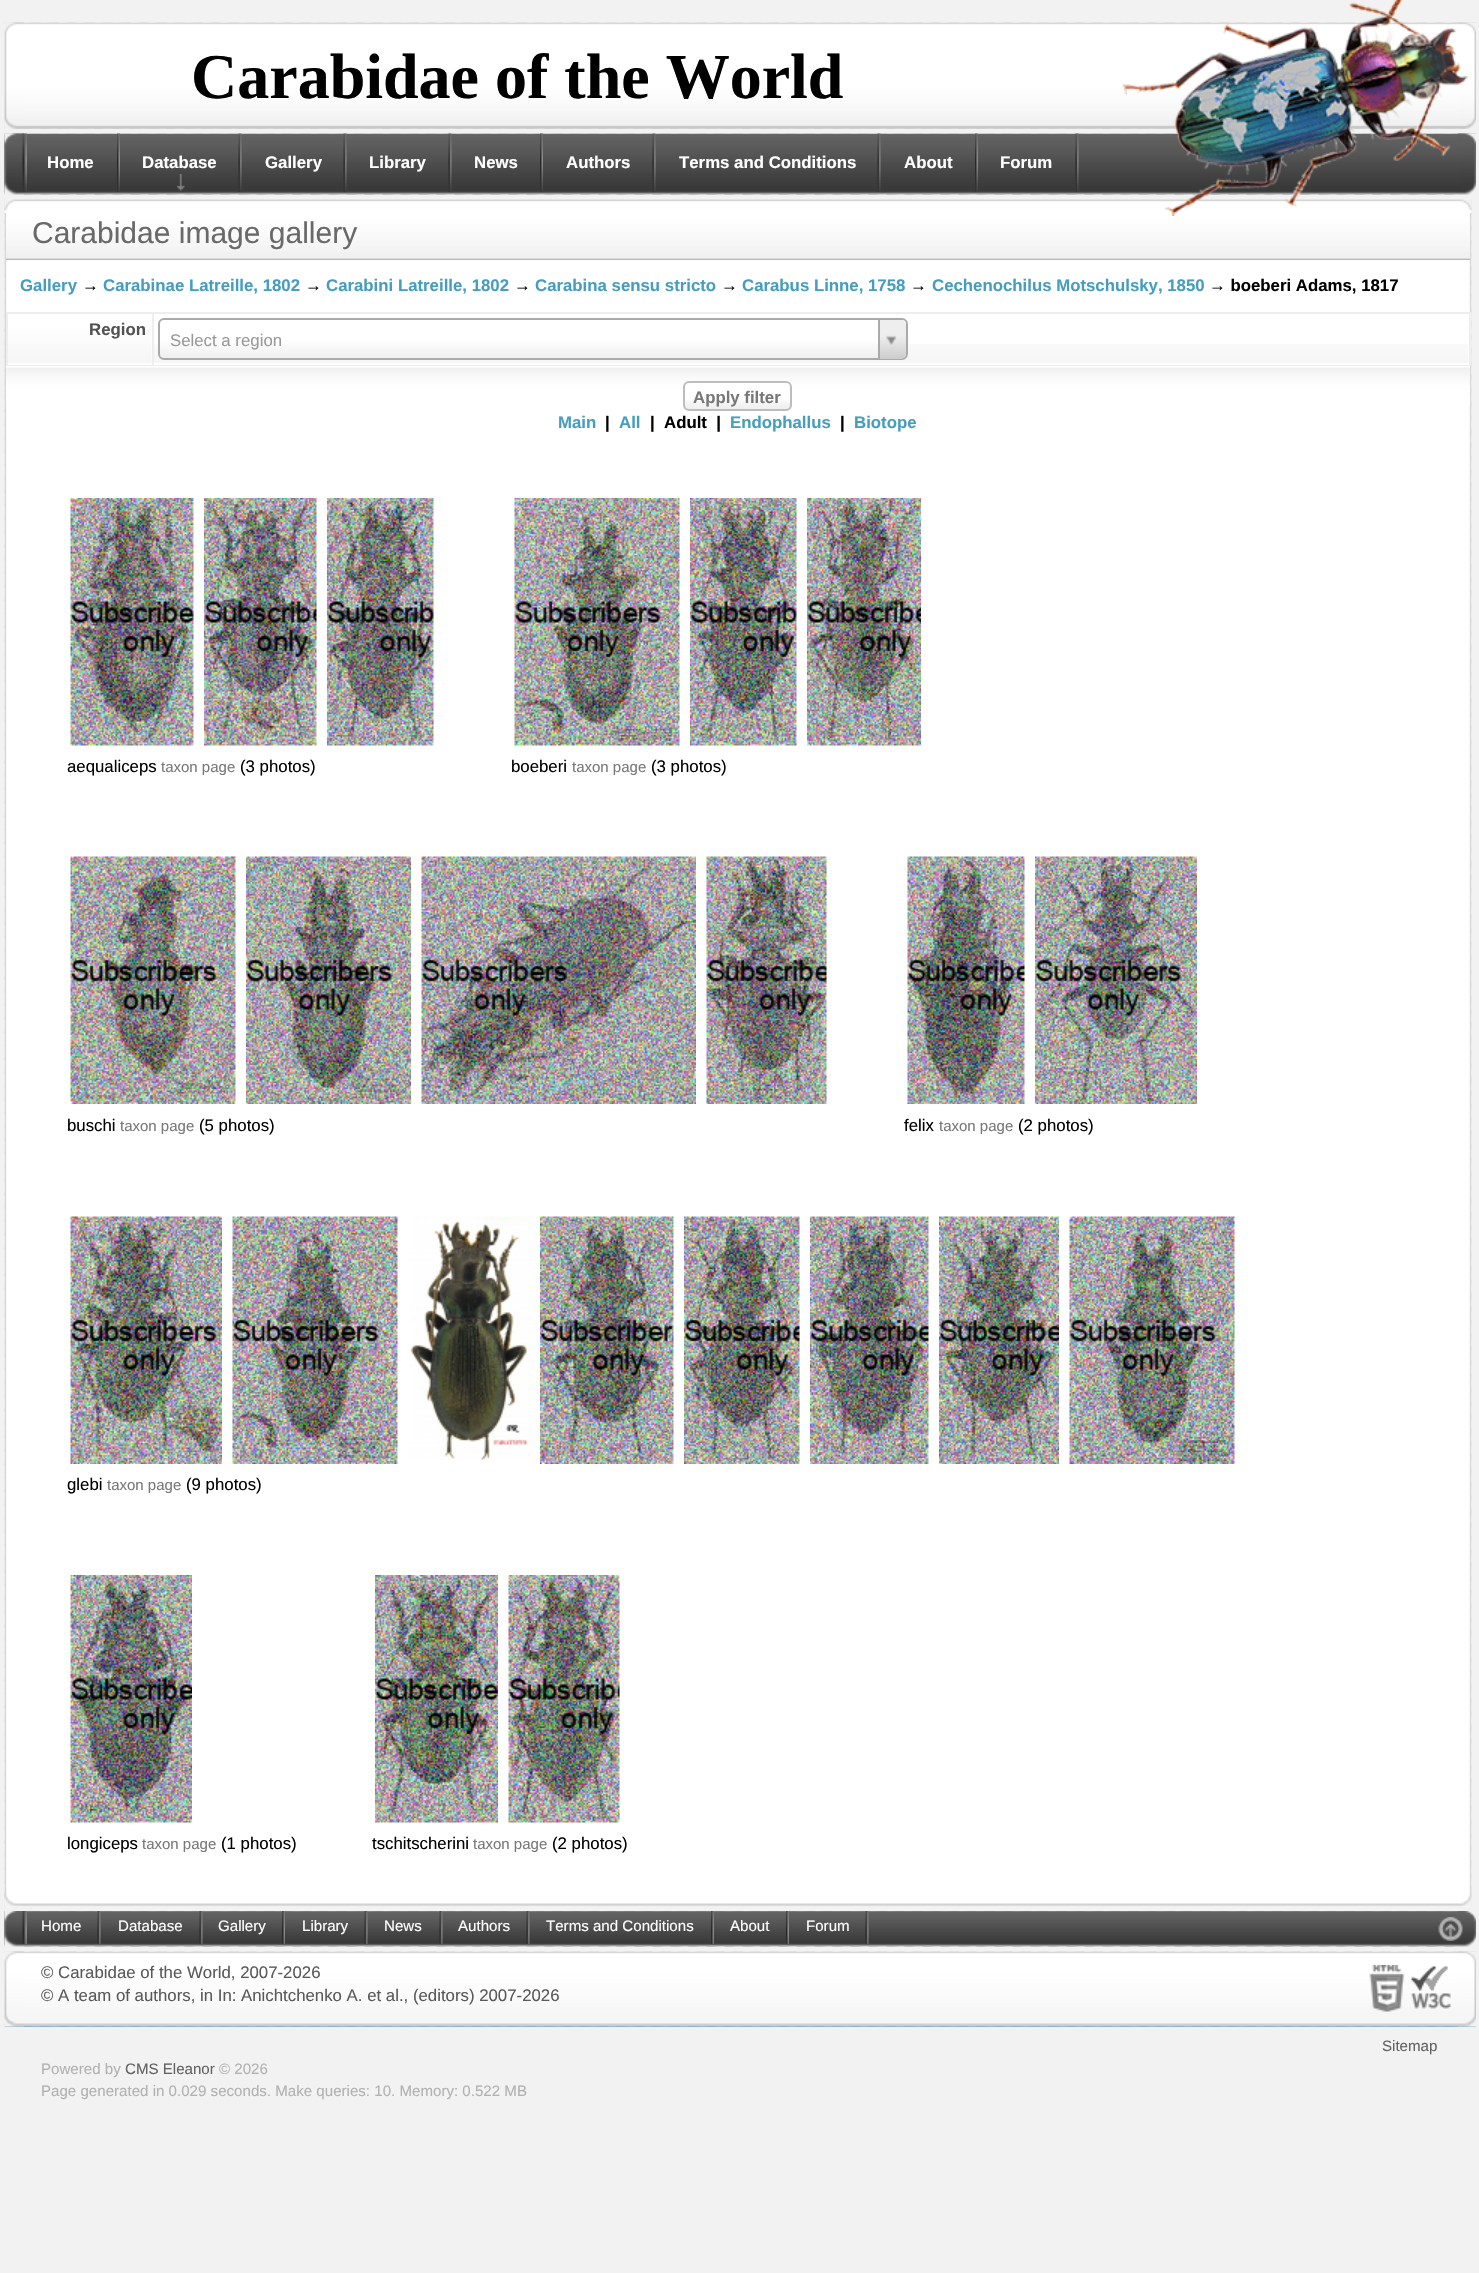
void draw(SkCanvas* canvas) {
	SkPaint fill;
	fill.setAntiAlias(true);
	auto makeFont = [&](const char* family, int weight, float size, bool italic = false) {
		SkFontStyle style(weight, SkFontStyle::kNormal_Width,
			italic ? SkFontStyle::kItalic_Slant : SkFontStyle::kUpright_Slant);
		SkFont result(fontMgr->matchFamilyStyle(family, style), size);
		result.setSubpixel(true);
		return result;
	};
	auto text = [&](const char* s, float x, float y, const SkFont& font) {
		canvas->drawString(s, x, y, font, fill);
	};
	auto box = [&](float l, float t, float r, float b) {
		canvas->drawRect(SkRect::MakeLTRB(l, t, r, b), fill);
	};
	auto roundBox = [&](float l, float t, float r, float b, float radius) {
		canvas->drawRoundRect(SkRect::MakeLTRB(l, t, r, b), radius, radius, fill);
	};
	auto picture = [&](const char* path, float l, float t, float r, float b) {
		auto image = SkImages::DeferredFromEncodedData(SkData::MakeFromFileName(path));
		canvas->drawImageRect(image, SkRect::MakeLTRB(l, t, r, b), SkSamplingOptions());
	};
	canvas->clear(0xFFF2F2F2);
	picture("image0.png", 4, 22, 1476, 129);
	picture("image1.png", 4, 22, 24, 129);
	picture("image2.png", 1458, 22, 1476, 129);
	picture("image4.png", 4, 133, 1476, 195);
	picture("image6.png", 1458, 133, 1476, 195);
	fill.setColor(0xFFFCFCFC);
	box(5, 200, 1472, 1907);
	picture("image16.png", 4, 199, 1472, 1907);
	picture("image17.png", 4, 199, 1472, 213);
	picture("image3.png", 1122, 0, 1469, 216);
	picture("image5.png", 4, 133, 24, 195);
	picture("image7.png", 22, 133, 27, 192);
	picture("image8.png", 117, 133, 120, 192);
	picture("image9.png", 177, 174, 185, 191);
	picture("image10.png", 238, 133, 242, 192);
	picture("image11.png", 343, 133, 347, 192);
	picture("image12.png", 448, 133, 452, 192);
	picture("image13.png", 540, 133, 543, 192);
	picture("image10.png", 652, 133, 656, 192);
	picture("image14.png", 877, 133, 881, 192);
	picture("image15.png", 975, 133, 978, 192);
	picture("image14.png", 1075, 133, 1079, 192);
	picture("image18.png", 4, 1893, 1472, 1907);
	picture("image19.png", 6, 217, 1470, 260);
	picture("image20.png", 8, 327, 152, 363);
	fill.setColor(0xFFEEEEEE);
	box(152, 312, 1470, 314);
	box(1469, 312, 1471, 366);
	box(152, 365, 1470, 366);
	box(152, 312, 154, 366);
	box(6, 312, 153, 314);
	box(6, 365, 153, 366);
	box(6, 312, 8, 366);
	picture("image21.png", 154, 344, 1469, 363);
	{
		const SkColor colors[] = {0xFFEEEEEE, 0xFFFFFFFF};
		const float stops[] = {0, 0.5f};
		const SkPoint ends[] = {{533, 359}, {533, 320}};
		fill.setShader(SkGradientShader::MakeLinear(ends, colors, stops, 2, SkTileMode::kClamp));
		fill.setAlpha(255);
	}
	roundBox(159, 320, 906, 359, 5);
	fill.setStyle(SkPaint::kStroke_Style);
	fill.setStrokeWidth(2);
	fill.setShader(nullptr);
	fill.setColor(0xFFAAAAAA);
	canvas->drawRoundRect(SkRect::MakeLTRB(159, 319, 907, 359), 5, 5, fill);
	canvas->save();
	canvas->clipPath(SkPathBuilder().moveTo(164, 320).lineTo(901, 320).cubicTo(904, 320, 906, 322, 906, 325).lineTo(906, 354).cubicTo(906, 357, 904, 359, 901, 359).lineTo(164, 359).cubicTo(161, 359, 159, 357, 159, 354).lineTo(159, 325).cubicTo(159, 322, 161, 320, 164, 320).close().detach(), true);
	fill.setStyle(SkPaint::kFill_Style);
	{
		const SkColor colors[] = {0xFFCCCCCC, 0xFFEEEEEE};
		const float stops[] = {0, 0.6f};
		const SkPoint ends[] = {{893, 359}, {893, 320}};
		fill.setShader(SkGradientShader::MakeLinear(ends, colors, stops, 2, SkTileMode::kClamp));
		fill.setAlpha(255);
	}
	canvas->drawPath(SkPathBuilder().moveTo(878, 320).lineTo(900, 320).cubicTo(903.5f, 320, 906, 322.5f, 906, 326).lineTo(906, 353).cubicTo(906, 356.5f, 903.5f, 359, 900, 359).lineTo(878, 359).close().detach(), fill);
	canvas->restore();
	fill.setShader(nullptr);
	fill.setColor(0xFFAAAAAA);
	box(878, 320, 880, 359);
	picture("image22.png", 886, 335, 897, 345);
	picture("image23.png", 6, 366, 1470, 405);
	fill.setColor(0xFFFFFFFF);
	roundBox(683, 381, 792, 411, 6);
	picture("image24.png", 683, 400, 792, 410);
	fill.setStyle(SkPaint::kStroke_Style);
	fill.setColor(0xFFBDBDBD);
	canvas->drawRoundRect(SkRect::MakeLTRB(684, 382, 791, 410), 5, 5, fill);
	picture("image25.png", 70, 498, 194, 746);
	picture("image26.png", 204, 498, 317, 746);
	picture("image27.png", 327, 498, 434, 746);
	picture("image28.png", 514, 498, 680, 746);
	picture("image29.png", 690, 498, 797, 746);
	picture("image30.png", 807, 498, 921, 746);
	picture("image31.png", 70, 856, 236, 1104);
	picture("image32.png", 246, 856, 411, 1104);
	picture("image33.png", 421, 856, 696, 1104);
	picture("image34.png", 706, 856, 827, 1104);
	picture("image35.png", 907, 856, 1025, 1104);
	picture("image36.png", 1035, 856, 1197, 1104);
	picture("image37.png", 70, 1216, 222, 1464);
	picture("image38.png", 232, 1216, 398, 1464);
	picture("image39.png", 410, 1216, 529, 1460);
	picture("image40.png", 540, 1216, 674, 1464);
	picture("image41.png", 684, 1216, 800, 1464);
	picture("image42.png", 810, 1216, 929, 1464);
	picture("image43.png", 939, 1216, 1059, 1464);
	picture("image44.png", 1069, 1216, 1235, 1464);
	picture("image45.png", 70, 1575, 192, 1823);
	picture("image46.png", 375, 1575, 498, 1823);
	picture("image47.png", 508, 1575, 620, 1823);
	picture("image48.png", 4, 1911, 1458, 1947);
	picture("image49.png", 4, 1911, 24, 1947);
	picture("image50.png", 1458, 1911, 1476, 1947);
	picture("image51.png", 22, 1911, 27, 1944);
	picture("image52.png", 97, 1911, 101, 1944);
	picture("image53.png", 199, 1911, 203, 1944);
	picture("image54.png", 282, 1911, 285, 1944);
	picture("image55.png", 364, 1911, 368, 1944);
	picture("image52.png", 439, 1911, 443, 1944);
	picture("image55.png", 526, 1911, 530, 1944);
	picture("image54.png", 711, 1911, 714, 1944);
	picture("image56.png", 786, 1911, 789, 1944);
	picture("image53.png", 865, 1911, 869, 1944);
	picture("image57.png", 1438, 1917, 1463, 1941);
	fill.setStyle(SkPaint::kFill_Style);
	fill.setColor(0xFF4991C3);
	box(5, 2026, 1476, 2027);
	picture("image58.png", 4, 1951, 1476, 2027);
	picture("image59.png", 4, 1951, 24, 2027);
	picture("image60.png", 1458, 1951, 1476, 2027);
	picture("image61.png", 1369, 1965, 1451, 2012);
	auto font1 = makeFont("Liberation Serif", 700, 64);
	fill.setColor(0xFF000000);
	text("Carabidae of the World", 191, 98, font1);
	auto font2 = makeFont("Liberation Sans", 700, 16.8f);
	fill.setColor(0xFFFFFFFF);
	text("Home", 47, 168, font2);
	text("Database", 142, 168, font2);
	text("Gallery", 265, 168, font2);
	text("Library", 369, 168, font2);
	text("News", 474, 168, font2);
	text("Authors", 566, 168, font2);
	text("Terms and Conditions", 679, 168, font2);
	text("About", 904, 168, font2);
	text("Forum", 1000, 168, font2);
	auto font3 = makeFont("Liberation Sans", 400, 30);
	fill.setColor(0xFF696969);
	text("Carabidae image gallery", 32, 243, font3);
	fill.setColor(0xFF469EBF);
	text("Gallery", 20, 291, font2);
	fill.setColor(0xFF000000);
	text("→", 82, 291, font2);
	fill.setColor(0xFF469EBF);
	text("Carabinae Latreille, 1802", 103, 291, font2);
	fill.setColor(0xFF000000);
	text("→", 305, 291, font2);
	fill.setColor(0xFF469EBF);
	text("Carabini Latreille, 1802", 326, 291, font2);
	fill.setColor(0xFF000000);
	text("→", 514, 291, font2);
	fill.setColor(0xFF469EBF);
	text("Carabina sensu stricto", 535, 291, font2);
	fill.setColor(0xFF000000);
	text("→", 721, 291, font2);
	fill.setColor(0xFF469EBF);
	text("Carabus Linne, 1758", 742, 291, font2);
	fill.setColor(0xFF000000);
	text("→", 910, 291, font2);
	fill.setColor(0xFF469EBF);
	text("Cechenochilus Motschulsky, 1850", 932, 291, font2);
	fill.setColor(0xFF000000);
	text("→ boeberi Adams, 1817", 1209, 291, font2);
	fill.setColor(0xFF525252);
	text("Region", 89, 335, font2);
	auto font4 = makeFont("Liberation Sans", 400, 16.8f);
	fill.setColor(0xFF999999);
	text("Select a region", 170, 346, font4);
	fill.setColor(0xFF787878);
	text("Apply filter", 693, 403, font2);
	fill.setColor(0xFF469EBF);
	text("Main", 558, 428, font2);
	fill.setColor(0xFF000000);
	text("|", 605, 428, font2);
	fill.setColor(0xFF469EBF);
	text("All", 619, 428, font2);
	fill.setColor(0xFF000000);
	text("|  Adult  |", 650, 428, font2);
	fill.setColor(0xFF469EBF);
	text("Endophallus", 730, 428, font2);
	fill.setColor(0xFF000000);
	text("|", 840, 428, font2);
	fill.setColor(0xFF469EBF);
	text("Biotope", 854, 428, font2);
	fill.setColor(0xFF000000);
	text("aequaliceps", 67, 772, font4);
	auto font5 = makeFont("Liberation Sans", 400, 15);
	fill.setColor(0xFF787878);
	text("taxon page", 161, 772, font5);
	fill.setColor(0xFF000000);
	text("(3 photos)", 240, 772, font4);
	text("boeberi", 511, 772, font4);
	fill.setColor(0xFF787878);
	text("taxon page", 572, 772, font5);
	fill.setColor(0xFF000000);
	text("(3 photos)", 651, 772, font4);
	text("buschi", 67, 1131, font4);
	fill.setColor(0xFF787878);
	text("taxon page", 120, 1131, font5);
	fill.setColor(0xFF000000);
	text("(5 photos)", 199, 1131, font4);
	text("felix", 904, 1131, font4);
	fill.setColor(0xFF787878);
	text("taxon page", 939, 1131, font5);
	fill.setColor(0xFF000000);
	text("(2 photos)", 1018, 1131, font4);
	text("glebi", 67, 1490, font4);
	fill.setColor(0xFF787878);
	text("taxon page", 107, 1490, font5);
	fill.setColor(0xFF000000);
	text("(9 photos)", 186, 1490, font4);
	text("longiceps", 67, 1849, font4);
	fill.setColor(0xFF787878);
	text("taxon page", 142, 1849, font5);
	fill.setColor(0xFF000000);
	text("(1 photos)", 221, 1849, font4);
	text("tschitscherini", 372, 1849, font4);
	fill.setColor(0xFF787878);
	text("taxon page", 473, 1849, font5);
	fill.setColor(0xFF000000);
	text("(2 photos)", 552, 1849, font4);
	auto font6 = makeFont("Liberation Sans", 400, 15.1f);
	fill.setColor(0xFFFFFFFF);
	text("Home", 41, 1931, font6);
	text("Database", 118, 1931, font6);
	text("Gallery", 218, 1931, font6);
	text("Library", 302, 1931, font6);
	text("News", 384, 1931, font6);
	text("Authors", 458, 1931, font6);
	text("Terms and Conditions", 546, 1931, font6);
	text("About", 730, 1931, font6);
	text("Forum", 806, 1931, font6);
	fill.setColor(0xFF595959);
	text("© Carabidae of the World, 2007-2026", 41, 1978, font4);
	text("© A team of authors, in In: Anichtchenko A. et al., (editors) 2007-2026", 41, 2001, font4);
	fill.setColor(0xFF616161);
	text("Sitemap", 1382, 2051, font6);
	fill.setColor(0xFFB1B1B1);
	text("Powered by", 41, 2074, font6);
	fill.setColor(0xFF616161);
	text("CMS Eleanor", 125, 2074, font6);
	fill.setColor(0xFFB1B1B1);
	text("© 2026", 219, 2074, font6);
	text("Page generated in 0.029 seconds. Make queries: 10. Memory: 0.522 MB", 41, 2096, font6);
}
